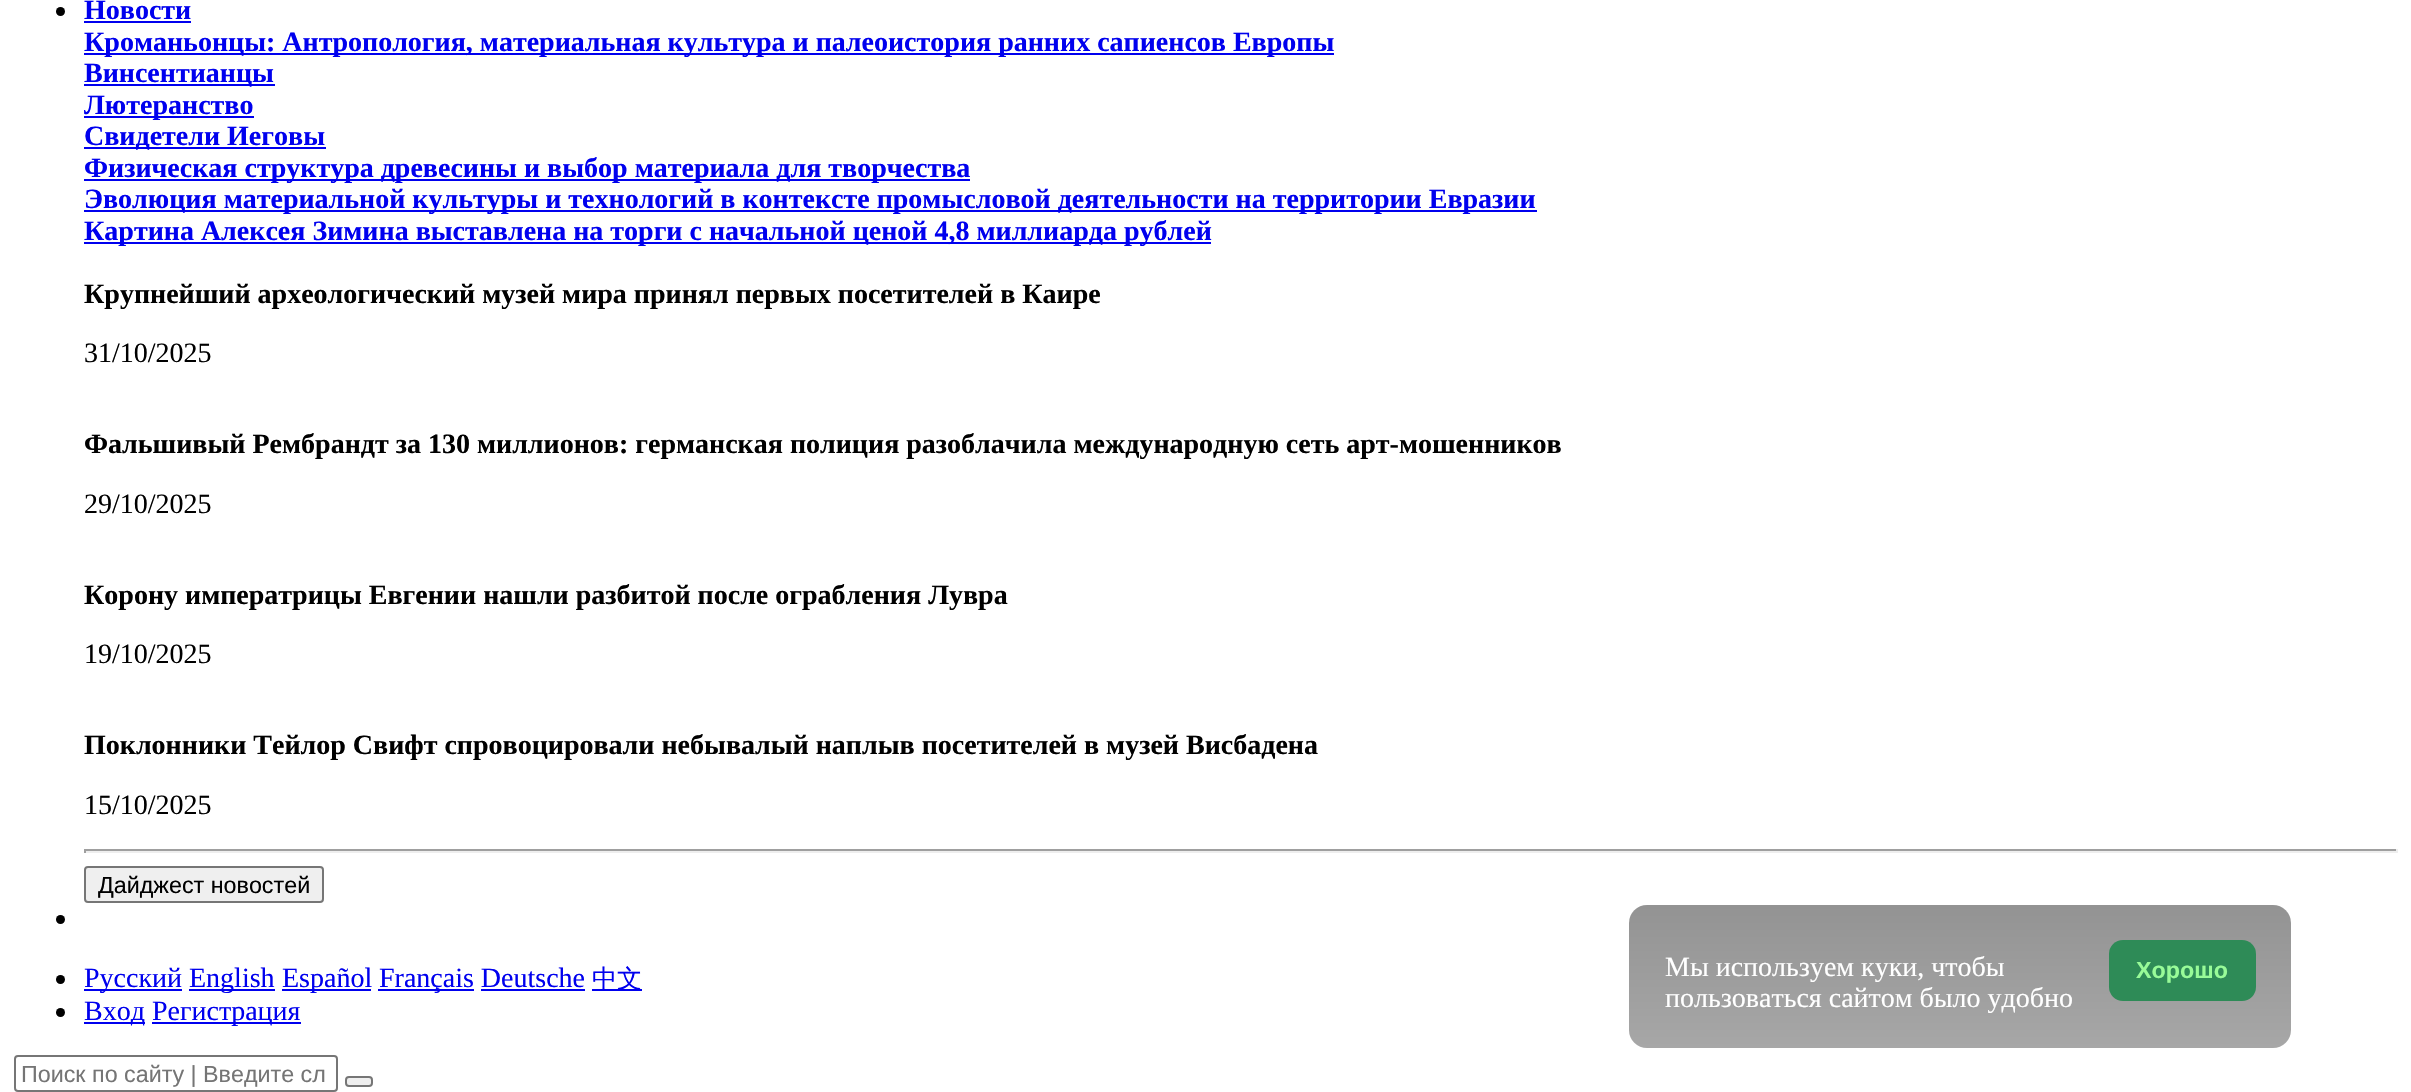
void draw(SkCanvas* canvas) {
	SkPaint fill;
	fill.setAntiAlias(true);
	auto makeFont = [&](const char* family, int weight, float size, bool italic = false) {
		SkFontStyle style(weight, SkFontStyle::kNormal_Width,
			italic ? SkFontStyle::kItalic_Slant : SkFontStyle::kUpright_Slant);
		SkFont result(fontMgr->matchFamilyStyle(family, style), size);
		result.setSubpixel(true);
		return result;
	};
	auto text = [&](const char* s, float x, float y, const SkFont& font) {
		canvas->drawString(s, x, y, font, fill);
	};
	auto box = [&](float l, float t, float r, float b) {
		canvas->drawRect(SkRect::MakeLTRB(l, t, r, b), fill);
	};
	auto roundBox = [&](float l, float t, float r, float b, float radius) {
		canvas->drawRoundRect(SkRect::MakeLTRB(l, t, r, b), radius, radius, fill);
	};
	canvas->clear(0xFFFFFFFF);
	fill.setColor(0xFF000000);
	canvas->drawCircle(60.5f, 11.5f, 4.5f, fill);
	fill.setColor(0xFF0000EE);
	box(84, 21, 191, 23);
	box(84, 53, 1334, 55);
	box(84, 84, 275, 86);
	box(84, 116, 254, 118);
	box(84, 147, 326, 149);
	box(84, 179, 970, 181);
	box(84, 210, 1537, 212);
	box(84, 242, 1211, 244);
	fill.setColor(0xFF9F9F9F);
	box(84, 849, 2398, 851);
	fill.setColor(0xFFEEEEEE);
	box(2396, 849, 2398, 853);
	box(84, 851, 2398, 853);
	fill.setColor(0xFF9F9F9F);
	box(84, 849, 86, 853);
	fill.setColor(0xFFEFEFEF);
	canvas->drawRoundRect(SkRect::MakeLTRB(85, 867, 323, 902), 3, 3, fill);
	fill.setStyle(SkPaint::kStroke_Style);
	fill.setStrokeWidth(2);
	fill.setColor(0xFF767676);
	canvas->drawRoundRect(SkRect::MakeLTRB(85, 867, 323, 902), 3, 3, fill);
	fill.setStyle(SkPaint::kFill_Style);
	fill.setColor(0xFF000000);
	canvas->drawCircle(60.5f, 919.5f, 4.5f, fill);
	canvas->drawCircle(60.5f, 979.5f, 4.5f, fill);
	fill.setColor(0xFF0000EE);
	box(84, 989, 182, 991);
	box(189, 989, 275, 991);
	box(282, 989, 371, 991);
	box(378, 989, 474, 991);
	box(592, 989, 642, 991);
	box(481, 989, 585, 991);
	fill.setColor(0xFF000000);
	canvas->drawCircle(60.5f, 1012.5f, 4.5f, fill);
	fill.setColor(0xFF0000EE);
	box(84, 1022, 145, 1024);
	box(152, 1022, 301, 1024);
	fill.setStyle(SkPaint::kStroke_Style);
	fill.setColor(0xFF767676);
	canvas->drawRoundRect(SkRect::MakeLTRB(15, 1056, 337, 1091), 3, 3, fill);
	fill.setStyle(SkPaint::kFill_Style);
	fill.setColor(0xFFEFEFEF);
	canvas->drawRoundRect(SkRect::MakeLTRB(346, 1077, 372, 1086), 3, 3, fill);
	fill.setStyle(SkPaint::kStroke_Style);
	fill.setColor(0xFF767676);
	canvas->drawRoundRect(SkRect::MakeLTRB(346, 1077, 372, 1086), 3, 3, fill);
	fill.setStyle(SkPaint::kFill_Style);
	{
		const SkColor colors[] = {0xFFA7A7A7, 0xFF939393};
		const float stops[] = {0, 1};
		const SkPoint ends[] = {{1960, 1048}, {1960, 905}};
		fill.setShader(SkGradientShader::MakeLinear(ends, colors, stops, 2, SkTileMode::kClamp));
		fill.setAlpha(255);
	}
	roundBox(1629, 905, 2291, 1048, 18);
	fill.setShader(nullptr);
	fill.setColor(0xFF2E8B57);
	roundBox(2109, 940, 2256, 1001, 14);
	auto font1 = makeFont("Liberation Serif", 700, 28);
	fill.setColor(0xFF0000EE);
	text("Новости", 84, 19, font1);
	text("Кроманьонцы: Антропология, материальная культура и палеоистория ранних сапиенсов Европы", 84, 51, font1);
	text("Винсентианцы", 84, 82, font1);
	text("Лютеранство", 84, 114, font1);
	text("Свидетели Иеговы", 84, 145, font1);
	text("Физическая структура древесины и выбор материала для творчества", 84, 177, font1);
	text("Эволюция материальной культуры и технологий в контексте промысловой деятельности на территории Евразии", 84, 208, font1);
	text("Картина Алексея Зимина выставлена на торги с начальной ценой 4,8 миллиарда рублей", 84, 240, font1);
	fill.setColor(0xFF000000);
	text("Крупнейший археологический музей мира принял первых посетителей в Каире", 84, 303, font1);
	auto font2 = makeFont("Liberation Serif", 400, 28);
	text("31/10/2025", 84, 362, font2);
	text("Фальшивый Рембрандт за 130 миллионов: германская полиция разоблачила международную сеть арт-мошенников", 84, 453, font1);
	text("29/10/2025", 84, 513, font2);
	text("Корону императрицы Евгении нашли разбитой после ограбления Лувра", 84, 604, font1);
	text("19/10/2025", 84, 663, font2);
	text("Поклонники Тейлор Свифт спровоцировали небывалый наплыв посетителей в музей Висбадена", 84, 754, font1);
	text("15/10/2025", 84, 814, font2);
	auto font3 = makeFont("Liberation Sans", 400, 23.3f);
	text("Дайджест новостей", 98, 893, font3);
	fill.setColor(0xFF0000EE);
	text("Русский", 84, 987, font2);
	text("English", 189, 987, font2);
	text("Español", 282, 987, font2);
	text("Français Deutsche", 379, 987, font2);
	auto font4 = makeFont("WenQuanYi Zen Hei", 500, 25);
	text("中文", 592, 987, font4);
	text("Вход", 84, 1020, font2);
	text("Регистрация", 152, 1020, font2);
	fill.setColor(0xFF757575);
	text("Поиск по сайту | Введите сл", 21, 1082, font3);
	fill.setColor(0xFFFFFFFF);
	text("Мы используем куки, чтобы", 1665, 976, font2);
	text("пользоваться сайтом было удобно", 1665, 1007, font2);
	auto font5 = makeFont("Liberation Sans", 700, 23.3f);
	fill.setColor(0xFF98FB98);
	text("Хорошо", 2136, 978, font5);
}
